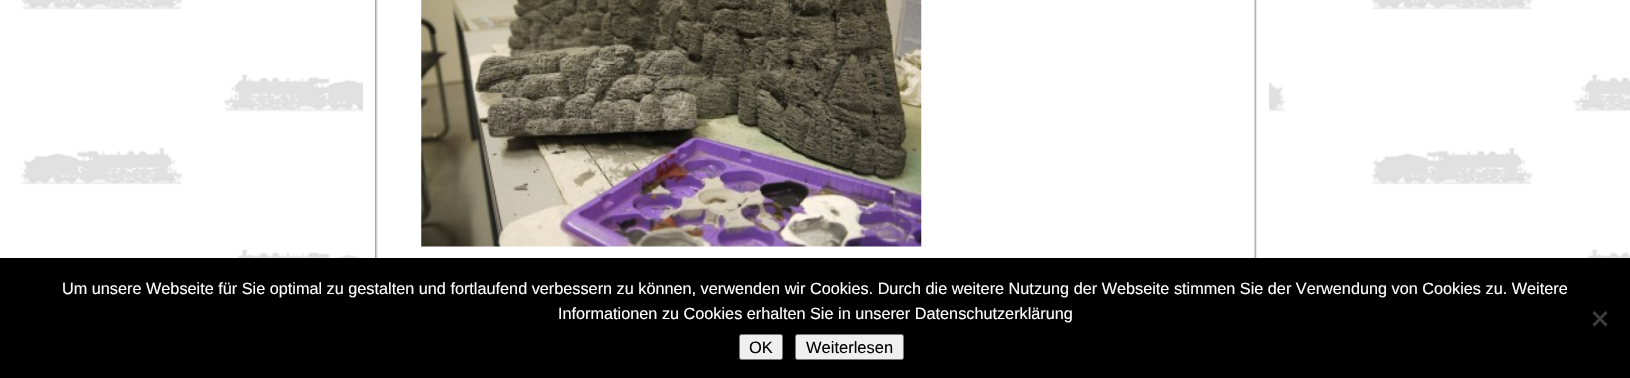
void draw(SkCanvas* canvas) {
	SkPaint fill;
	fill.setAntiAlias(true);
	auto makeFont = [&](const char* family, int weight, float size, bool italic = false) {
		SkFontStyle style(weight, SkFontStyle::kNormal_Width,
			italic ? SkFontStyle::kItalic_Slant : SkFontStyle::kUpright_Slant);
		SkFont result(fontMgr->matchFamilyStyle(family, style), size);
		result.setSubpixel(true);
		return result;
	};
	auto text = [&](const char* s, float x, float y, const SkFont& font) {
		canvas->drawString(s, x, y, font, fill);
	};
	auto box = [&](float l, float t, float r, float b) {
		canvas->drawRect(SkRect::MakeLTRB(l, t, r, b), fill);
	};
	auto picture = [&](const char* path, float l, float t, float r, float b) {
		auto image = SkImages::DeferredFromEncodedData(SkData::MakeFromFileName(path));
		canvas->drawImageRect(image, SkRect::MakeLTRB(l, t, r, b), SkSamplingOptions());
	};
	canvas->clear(0xFFFFFFFF);
	picture("image0.png", 21, 0, 1630, 258);
	fill.setColor(0xFFFFFFFF);
	box(363, 0, 1269, 258);
	picture("image1.png", 375, 0, 1257, 258);
	picture("image2.png", 421, 0, 922, 247);
	fill.setColor(0xFF000000);
	box(0, 258, 1630, 378);
	fill.setColor(0xFF404040);
	canvas->drawPath(SkPathBuilder().moveTo(1605.5f, 311).lineTo(1607.5f, 313).lineTo(1594.5f, 326.5f).lineTo(1592.5f, 324.5f).close().detach(), fill);
	canvas->drawPath(SkPathBuilder().moveTo(1592.5f, 313).lineTo(1594.5f, 311).lineTo(1607.5f, 324.5f).lineTo(1605.5f, 326.5f).close().detach(), fill);
	fill.setColor(0xFFEFEFEF);
	canvas->drawRoundRect(SkRect::MakeLTRB(739.5f, 334.5f, 782.5f, 359.5f), 2, 2, fill);
	fill.setStyle(SkPaint::kStroke_Style);
	fill.setStrokeWidth(1);
	fill.setColor(0xFF767676);
	canvas->drawRoundRect(SkRect::MakeLTRB(739.5f, 334.5f, 782.5f, 359.5f), 2, 2, fill);
	fill.setStyle(SkPaint::kFill_Style);
	fill.setColor(0xFFEFEFEF);
	canvas->drawRoundRect(SkRect::MakeLTRB(795.5f, 334.5f, 903.5f, 359.5f), 2, 2, fill);
	fill.setStyle(SkPaint::kStroke_Style);
	fill.setColor(0xFF767676);
	canvas->drawRoundRect(SkRect::MakeLTRB(795.5f, 334.5f, 903.5f, 359.5f), 2, 2, fill);
	auto font1 = makeFont("Liberation Sans", 400, 16.25f);
	fill.setStyle(SkPaint::kFill_Style);
	fill.setColor(0xFFFFFFFF);
	text("Um unsere Webseite für Sie optimal zu gestalten und fortlaufend verbessern zu können, verwenden wir Cookies. Durch die weitere Nutzung der Webseite stimmen Sie der Verwendung von Cookies zu. Weitere", 62, 294, font1);
	text("Informationen zu Cookies erhalten Sie in unserer Datenschutzerklärung", 558, 319, font1);
	auto font2 = makeFont("Liberation Sans", 400, 16.5f);
	fill.setColor(0xFF000000);
	text("OK", 749, 353, font2);
	text("Weiterlesen", 806, 353, font2);
}
